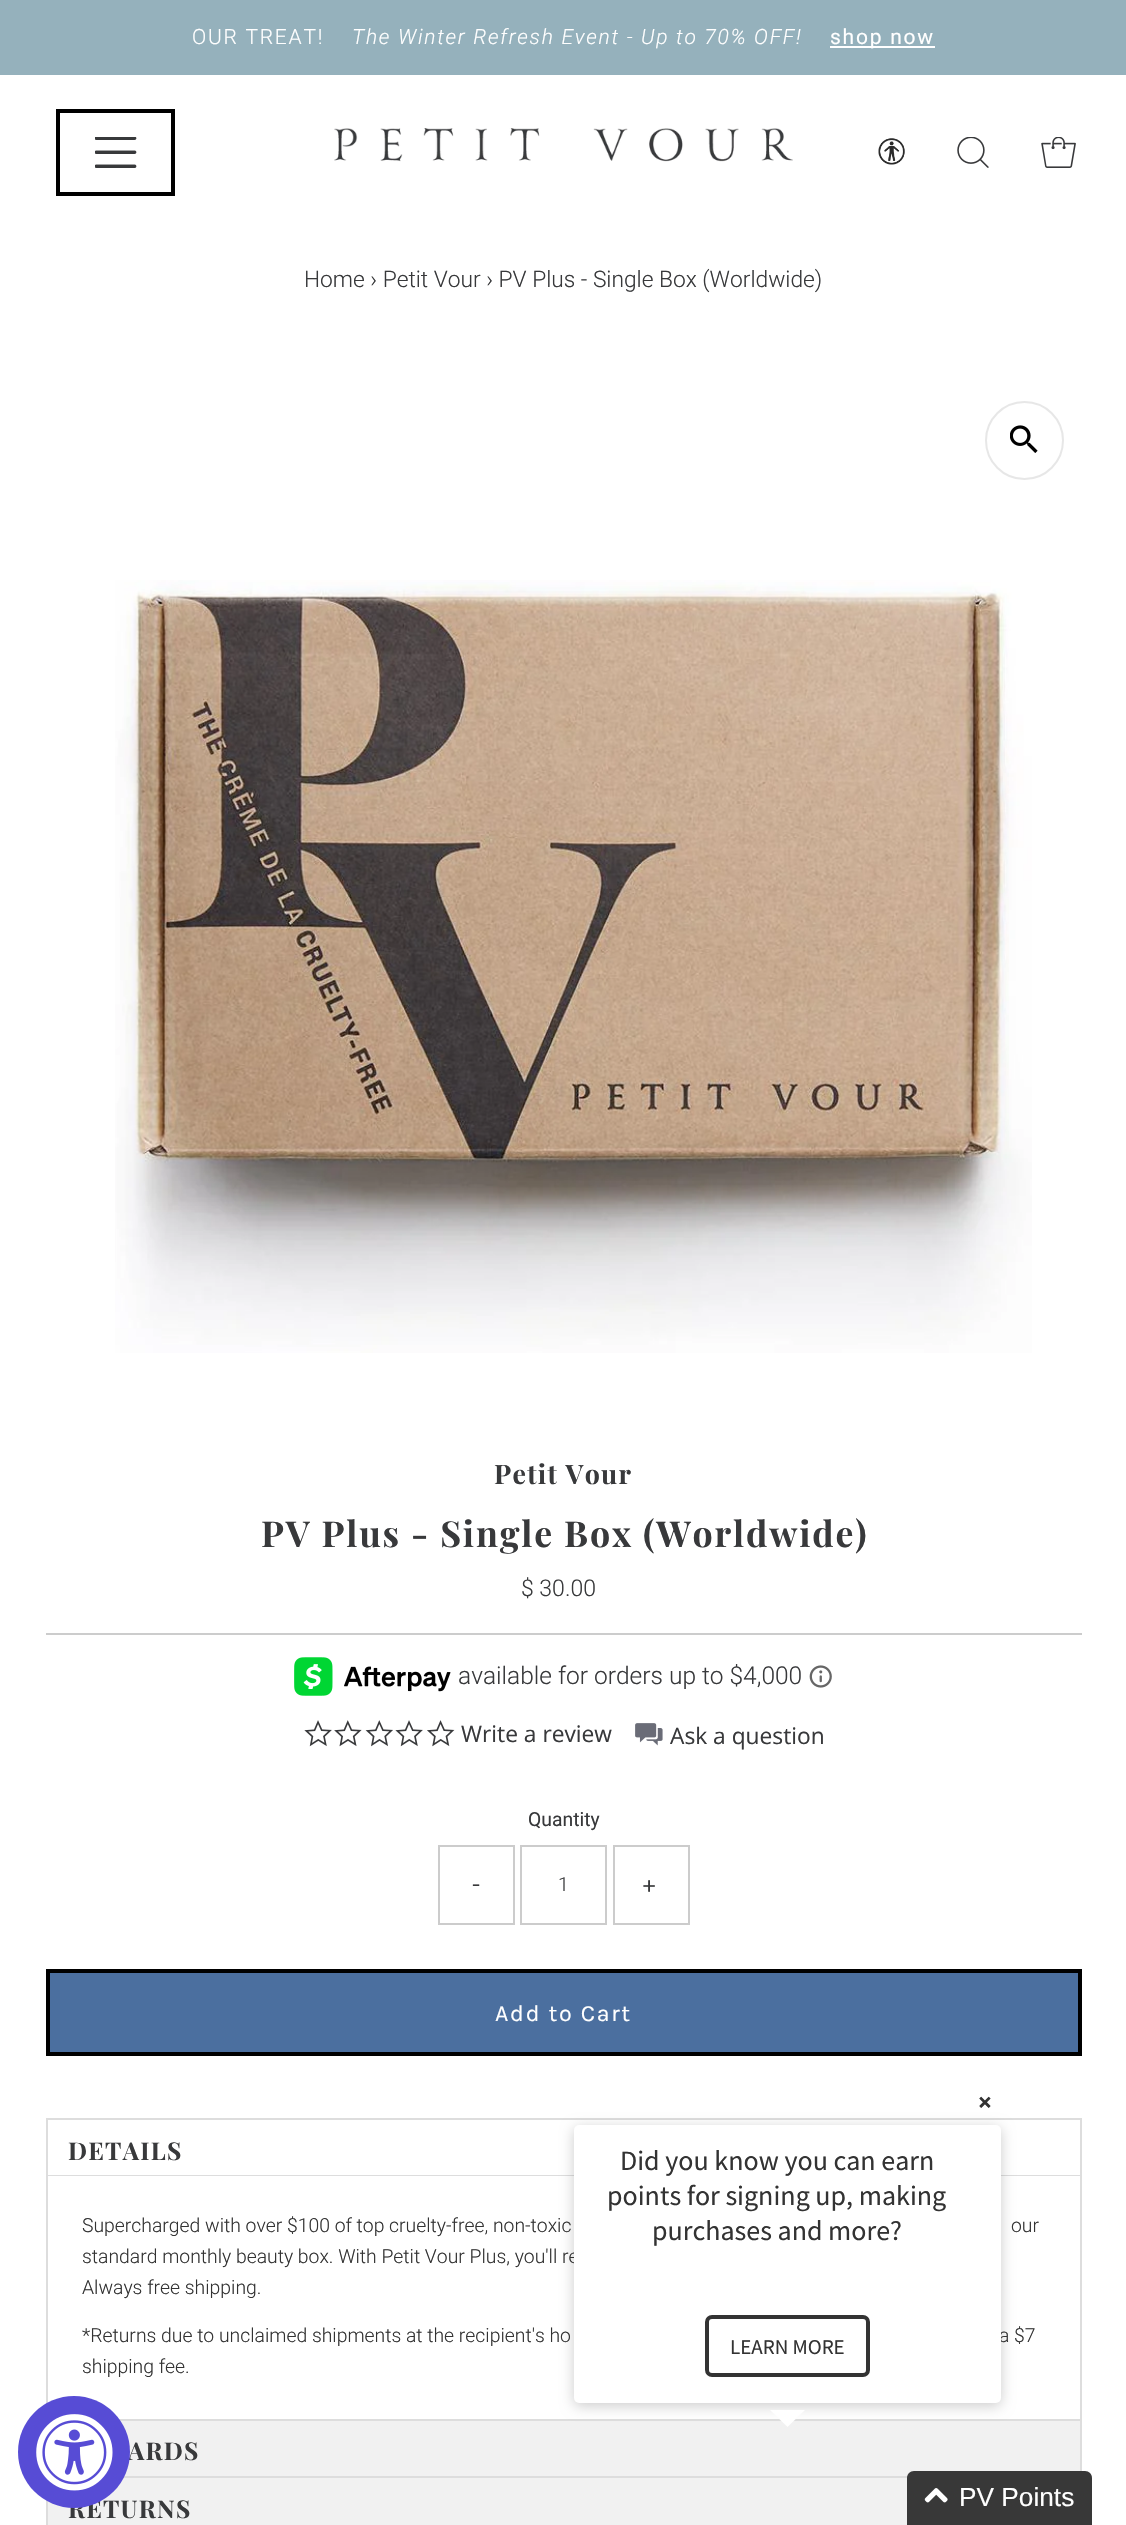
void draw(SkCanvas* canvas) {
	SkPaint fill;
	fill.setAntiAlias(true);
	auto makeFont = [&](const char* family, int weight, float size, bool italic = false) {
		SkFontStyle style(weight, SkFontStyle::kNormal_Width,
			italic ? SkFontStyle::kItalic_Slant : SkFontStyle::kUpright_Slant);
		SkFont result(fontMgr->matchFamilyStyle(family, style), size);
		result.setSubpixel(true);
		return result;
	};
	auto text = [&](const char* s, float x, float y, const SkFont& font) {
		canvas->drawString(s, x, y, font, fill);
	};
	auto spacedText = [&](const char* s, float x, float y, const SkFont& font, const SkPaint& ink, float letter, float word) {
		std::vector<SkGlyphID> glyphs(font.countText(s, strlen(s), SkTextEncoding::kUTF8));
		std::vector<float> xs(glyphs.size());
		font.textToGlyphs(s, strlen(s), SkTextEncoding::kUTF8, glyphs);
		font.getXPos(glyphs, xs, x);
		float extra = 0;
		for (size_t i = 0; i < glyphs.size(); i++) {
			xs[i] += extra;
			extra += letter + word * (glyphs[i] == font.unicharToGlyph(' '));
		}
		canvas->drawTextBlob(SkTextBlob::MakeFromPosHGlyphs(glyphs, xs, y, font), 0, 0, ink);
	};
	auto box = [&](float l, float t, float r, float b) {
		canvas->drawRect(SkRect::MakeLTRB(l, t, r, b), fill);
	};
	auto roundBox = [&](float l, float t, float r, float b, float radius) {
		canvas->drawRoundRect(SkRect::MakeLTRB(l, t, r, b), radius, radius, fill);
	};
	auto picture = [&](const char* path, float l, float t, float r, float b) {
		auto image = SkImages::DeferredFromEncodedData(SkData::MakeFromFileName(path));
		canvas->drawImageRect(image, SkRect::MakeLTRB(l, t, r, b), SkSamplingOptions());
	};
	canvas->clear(0xFFFFFFFF);
	fill.setColor(0xFF95B1BC);
	box(0, 0, 1126, 75);
	fill.setColor(0xFFFFFFFF);
	box(830, 46, 935, 48);
	fill.setStyle(SkPaint::kStroke_Style);
	fill.setStrokeWidth(4);
	fill.setColor(0xFF000000);
	canvas->drawRect(SkRect::MakeLTRB(58, 111, 173, 194), fill);
	picture("image0.png", 95, 137, 137, 168);
	picture("image1.png", 334, 128, 793, 162);
	picture("image2.png", 878, 138, 905, 165);
	picture("image3.png", 957, 137, 989, 168);
	picture("image4.png", 1041, 137, 1076, 168);
	fill.setStrokeWidth(2);
	fill.setColor(0xFFE7E7E7);
	canvas->drawCircle(1024.5f, 440.5f, 38.5f, fill);
	picture("image5.png", 1010, 425, 1038, 453);
	picture("image6.png", 115, 580, 1032, 1353);
	fill.setStyle(SkPaint::kFill_Style);
	fill.setColor(0xFFCCCCCC);
	box(46, 1633, 1082, 1635);
	picture("image7.png", 294, 1657, 451, 1696);
	picture("image8.png", 809, 1665, 832, 1688);
	picture("image9.png", 304, 1720, 332, 1747);
	picture("image10.png", 334, 1720, 362, 1747);
	picture("image11.png", 365, 1720, 393, 1747);
	picture("image9.png", 395, 1720, 423, 1747);
	picture("image12.png", 427, 1720, 455, 1747);
	picture("image13.png", 635, 1723, 663, 1746);
	fill.setStyle(SkPaint::kStroke_Style);
	canvas->drawRect(SkRect::MakeLTRB(439, 1846, 514, 1924), fill);
	canvas->drawRect(SkRect::MakeLTRB(521, 1846, 606, 1924), fill);
	canvas->drawRect(SkRect::MakeLTRB(614, 1846, 689, 1924), fill);
	fill.setStyle(SkPaint::kFill_Style);
	fill.setColor(0xFF4B6F9F);
	canvas->drawRect(SkRect::MakeLTRB(48, 1971, 1080, 2054), fill);
	fill.setStyle(SkPaint::kStroke_Style);
	fill.setStrokeWidth(4);
	fill.setColor(0xFF000000);
	canvas->drawRect(SkRect::MakeLTRB(48, 1971, 1080, 2054), fill);
	fill.setStyle(SkPaint::kFill_Style);
	fill.setColor(0xFFDDDDDD);
	box(46, 2118, 1082, 2120);
	box(46, 2175, 1082, 2176);
	box(1080, 2174, 1082, 2419);
	box(1080, 2118, 1082, 2175);
	box(46, 2174, 48, 2404);
	box(46, 2118, 48, 2175);
	fill.setColor(0xFFF1F1F1);
	box(120, 2421, 1080, 2476);
	fill.setColor(0xFFDDDDDD);
	box(119, 2419, 1082, 2421);
	box(1080, 2419, 1082, 2476);
	fill.setColor(0xFFF1F1F1);
	box(48, 2478, 907, 2525);
	fill.setStyle(SkPaint::kStroke_Style);
	fill.setStrokeWidth(2);
	fill.setColor(0xFFDDDDDD);
	canvas->drawRect(SkRect::MakeLTRB(47, 2477, 1081, 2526), fill);
	fill.setStyle(SkPaint::kFill_Style);
	fill.setColor(0x33000000);
	fill.setMaskFilter(SkMaskFilter::MakeBlur(kNormal_SkBlurStyle, 7));
	canvas->drawRoundRect(SkRect::MakeLTRB(574, 2128, 1001, 2406), 5, 5, fill);
	fill.setMaskFilter(nullptr);
	fill.setColor(0xFFFFFFFF);
	canvas->drawPath(SkPathBuilder().moveTo(770, 2410).lineTo(805, 2410).lineTo(787.5f, 2427).close().detach(), fill);
	fill.setColor(0xFF383838);
	canvas->drawPath(SkPathBuilder().moveTo(914, 2471).lineTo(1085, 2471).cubicTo(1089, 2471, 1092, 2474, 1092, 2478).lineTo(1092, 2525).lineTo(907, 2525).lineTo(907, 2478).cubicTo(907, 2474, 910, 2471, 914, 2471).close().detach(), fill);
	picture("image15.png", 924, 2488, 948, 2503);
	auto font1 = makeFont("Roboto", 300, 21);
	fill.setColor(0xFFFFFFFF);
	spacedText("OUR TREAT!", 192, 44, font1, fill, 1.75f, 0);
	auto font2 = makeFont("Roboto", 300, 21, true);
	spacedText("The Winter Refresh Event - Up to 70% OFF!", 352, 44, font2, fill, 1.75f, 0);
	auto font3 = makeFont("Roboto", 400, 21);
	spacedText("shop now", 830, 44, font3, fill, 1.75f, 0);
	auto font4 = makeFont("Roboto", 300, 22.75f);
	fill.setColor(0xFF38393B);
	text("Home › Petit Vour › PV Plus - Single Box (Worldwide)", 304, 287, font4);
	auto font5 = makeFont("Playfair Display", 700, 26.75f);
	spacedText("Petit Vour", 494, 1484, font5, fill, 1.25f, 0);
	auto font6 = makeFont("Playfair Display", 700, 35.75f);
	spacedText("PV Plus - Single Box (Worldwide)", 261, 1547, font6, fill, 1.8f, 0);
	auto font7 = makeFont("Roboto", 300, 23);
	text("$ 30.00", 521, 1596, font7);
	auto font8 = makeFont("Roboto", 300, 24.5f);
	text("available for orders up to $4,000", 458, 1684, font8);
	auto font9 = makeFont("Open Sans", 400, 22.75f);
	text("Write a review", 461, 1742, font9);
	text("Ask a question", 670, 1744, font9);
	auto font10 = makeFont("Roboto", 400, 19.35f);
	text("Quantity", 528, 1826, font10);
	auto font11 = makeFont("Karla", 400, 23.25f);
	spacedText("-", 472, 1892, font11, fill, 1.75f, 0);
	auto font12 = makeFont("Roboto", 300, 19.35f);
	text("1", 558, 1891, font12);
	spacedText("+", 643, 1892, font11, fill, 1.75f, 0);
	fill.setColor(0xFFFFFFFF);
	spacedText("Add to Cart", 495, 2021, font11, fill, 1.75f, 0);
	auto font13 = makeFont("Playfair Display", 700, 24.5f);
	fill.setColor(0xFF38393B);
	spacedText("DETAILS", 68, 2160, font13, fill, 1.25f, 0);
	fill.setColor(0xFF333333);
	text("Supercharged with over $100 of top cruelty-free, non-toxic", 82, 2232, font12);
	text("our", 1011, 2232, font12);
	text("standard monthly beauty box. With Petit Vour Plus, you'll re", 82, 2263, font12);
	text("Always free shipping.", 82, 2294, font12);
	text("*Returns due to unclaimed shipments at the recipient's ho", 82, 2342, font12);
	text("a $7", 999, 2342, font12);
	text("shipping fee.", 82, 2373, font12);
	fill.setColor(0xFF38393B);
	spacedText("ARDS", 128, 2460, font13, fill, 1.25f, 0);
	spacedText("RETURNS", 68, 2518, font13, fill, 1.25f, 0);
	fill.setColor(0xFF574CD5);
	canvas->drawCircle(74, 2452, 56, fill);
	picture("image14.png", 36, 2414, 113, 2491);
	auto font14 = makeFont("Source Sans Pro", 700, 26.25f);
	fill.setColor(0xFF333333);
	text("×", 978, 2111, font14);
	fill.setColor(0xFFFFFFFF);
	roundBox(574, 2125, 1001, 2403, 5);
	auto font15 = makeFont("Source Sans Pro", 400, 28);
	fill.setColor(0xFF333333);
	text("Did you know you can earn", 620, 2170, font15);
	text("points for signing up, making", 607, 2205, font15);
	text("purchases and more?", 652, 2240, font15);
	fill.setStyle(SkPaint::kStroke_Style);
	fill.setStrokeWidth(4);
	canvas->drawRoundRect(SkRect::MakeLTRB(707, 2317, 868, 2375), 5, 5, fill);
	auto font16 = makeFont("Source Sans Pro", 400, 21);
	fill.setStyle(SkPaint::kFill_Style);
	text("LEARN MORE", 730, 2354, font16);
	auto font17 = makeFont("Liberation Sans", 400, 26.25f);
	fill.setColor(0xFFFFFFFF);
	text("PV Points", 959, 2506, font17);
}
